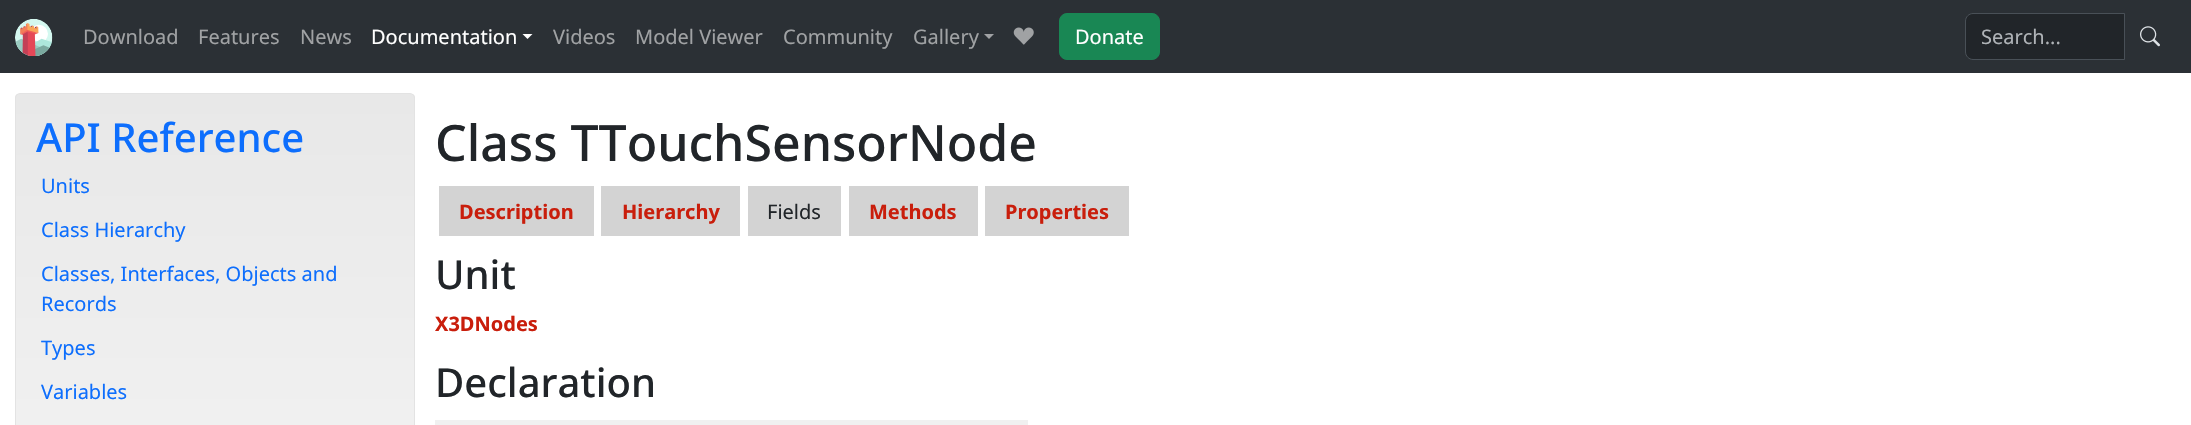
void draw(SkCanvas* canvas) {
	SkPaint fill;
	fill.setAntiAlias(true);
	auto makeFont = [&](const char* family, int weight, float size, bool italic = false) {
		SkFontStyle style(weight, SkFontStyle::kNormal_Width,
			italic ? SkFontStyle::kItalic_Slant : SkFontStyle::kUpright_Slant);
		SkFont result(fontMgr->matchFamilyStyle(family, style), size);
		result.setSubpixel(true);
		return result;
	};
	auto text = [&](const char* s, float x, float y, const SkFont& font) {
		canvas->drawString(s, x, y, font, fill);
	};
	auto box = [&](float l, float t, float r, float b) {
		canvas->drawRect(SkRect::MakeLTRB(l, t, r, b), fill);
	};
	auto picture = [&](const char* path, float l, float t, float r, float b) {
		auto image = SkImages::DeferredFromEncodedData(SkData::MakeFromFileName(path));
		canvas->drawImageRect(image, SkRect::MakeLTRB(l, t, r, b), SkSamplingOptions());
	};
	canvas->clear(0xFFFFFFFF);
	fill.setColor(0xFF2B3035);
	box(0, 0, 2191, 73);
	picture("image0.png", 15, 19, 53, 56);
	fill.setColor(0xFFFFFFFF);
	canvas->drawPath(SkPathBuilder().moveTo(522.5f, 34).lineTo(532.5f, 34).lineTo(527.5f, 39).close().detach(), fill);
	fill.setColor(0xFFA0A2A4);
	canvas->drawPath(SkPathBuilder().moveTo(984, 34).lineTo(994, 34).lineTo(989, 39).close().detach(), fill);
	picture("image1.png", 1013, 27, 1034, 45);
	fill.setColor(0xFF198754);
	canvas->drawRoundRect(SkRect::MakeLTRB(1059.5f, 13.5f, 1159.5f, 59.5f), 7.5f, 7.5f, fill);
	fill.setStyle(SkPaint::kStroke_Style);
	fill.setStrokeWidth(1);
	canvas->drawRoundRect(SkRect::MakeLTRB(1059.5f, 13.5f, 1159.5f, 59.5f), 7.5f, 7.5f, fill);
	fill.setStyle(SkPaint::kFill_Style);
	fill.setColor(0xFF212529);
	canvas->drawPath(SkPathBuilder().moveTo(1972, 14).lineTo(2124, 14).lineTo(2124, 59).lineTo(1972, 59).cubicTo(1968.5f, 59, 1966, 56.5f, 1966, 53).lineTo(1966, 20).cubicTo(1966, 16.5f, 1968.5f, 14, 1972, 14).close().detach(), fill);
	fill.setStyle(SkPaint::kStroke_Style);
	fill.setColor(0xFF495057);
	canvas->drawPath(SkPathBuilder().moveTo(1973, 13.5f).lineTo(2124.5f, 13.5f).lineTo(2124.5f, 59.5f).lineTo(1973, 59.5f).cubicTo(1969, 59.5f, 1965.5f, 56, 1965.5f, 52).lineTo(1965.5f, 21).cubicTo(1965.5f, 17, 1969, 13.5f, 1973, 13.5f).close().detach(), fill);
	picture("image2.png", 2140, 26, 2160, 47);
	canvas->save();
	canvas->clipPath(SkPathBuilder().moveTo(20, 93).lineTo(410, 93).cubicTo(413, 93, 415, 95, 415, 98).lineTo(415, 619).cubicTo(415, 622, 413, 624, 410, 624).lineTo(20, 624).cubicTo(17, 624, 15, 622, 15, 619).lineTo(15, 98).cubicTo(15, 95, 17, 93, 20, 93).close().detach(), true);
	fill.setStyle(SkPaint::kFill_Style);
	{
		const SkColor colors[] = {0xFFE8E8E8, 0xFFF5F5F5};
		const float stops[] = {0, 1};
		const SkPoint ends[] = {{215, 94}, {215, 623}};
		fill.setShader(SkGradientShader::MakeLinear(ends, colors, stops, 2, SkTileMode::kClamp));
		fill.setAlpha(255);
	}
	box(15, 94, 415, 425);
	canvas->restore();
	fill.setStyle(SkPaint::kStroke_Style);
	fill.setShader(nullptr);
	fill.setColor(0xFFE3E3E3);
	canvas->drawRoundRect(SkRect::MakeLTRB(15.5f, 93.5f, 414.5f, 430.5f), 4.5f, 4.5f, fill);
	fill.setStyle(SkPaint::kFill_Style);
	fill.setColor(0xFFD3D3D3);
	box(439, 186, 594, 236);
	box(601, 186, 740, 236);
	box(748, 186, 841, 236);
	box(849, 186, 978, 236);
	box(985, 186, 1129, 236);
	fill.setColor(0xFFF0F0F0);
	box(435, 420, 1028, 425);
	auto font1 = makeFont("Noto Sans", 400, 20);
	fill.setColor(0xFFA0A2A4);
	text("Download", 83, 44, font1);
	text("Features", 198, 44, font1);
	text("News", 300, 44, font1);
	fill.setColor(0xFFFFFFFF);
	text("Documentation", 371, 44, font1);
	fill.setColor(0xFFA0A2A4);
	text("Videos", 553, 44, font1);
	text("Model Viewer", 635, 44, font1);
	text("Community", 783, 44, font1);
	text("Gallery", 913, 44, font1);
	fill.setColor(0xFFFFFFFF);
	text("Donate", 1075, 44, font1);
	fill.setColor(0xFFAFB3B7);
	text("Search...", 1981, 44, font1);
	auto font2 = makeFont("Noto Sans", 500, 40);
	fill.setColor(0xFF0D6EFD);
	text("API Reference", 36, 152, font2);
	text("Units", 41, 193, font1);
	text("Class Hierarchy", 41, 237, font1);
	text("Classes, Interfaces, Objects and", 41, 281, font1);
	text("Records", 41, 311, font1);
	text("Types", 41, 355, font1);
	text("Variables", 41, 399, font1);
	auto font3 = makeFont("Noto Sans", 500, 50);
	fill.setColor(0xFF212529);
	text("Class TTouchSensorNode", 435, 161, font3);
	auto font4 = makeFont("Noto Sans", 700, 20);
	fill.setColor(0xFFC91E0C);
	text("Description", 459, 219, font4);
	text("Hierarchy", 622, 219, font4);
	fill.setColor(0xFF212529);
	text("Fields", 767, 219, font1);
	fill.setColor(0xFFC91E0C);
	text("Methods", 869, 219, font4);
	text("Properties", 1005, 219, font4);
	fill.setColor(0xFF212529);
	text("Unit", 435, 289, font2);
	fill.setColor(0xFFC91E0C);
	text("X3DNodes", 435, 331, font4);
	fill.setColor(0xFF212529);
	text("Declaration", 435, 397, font2);
}
